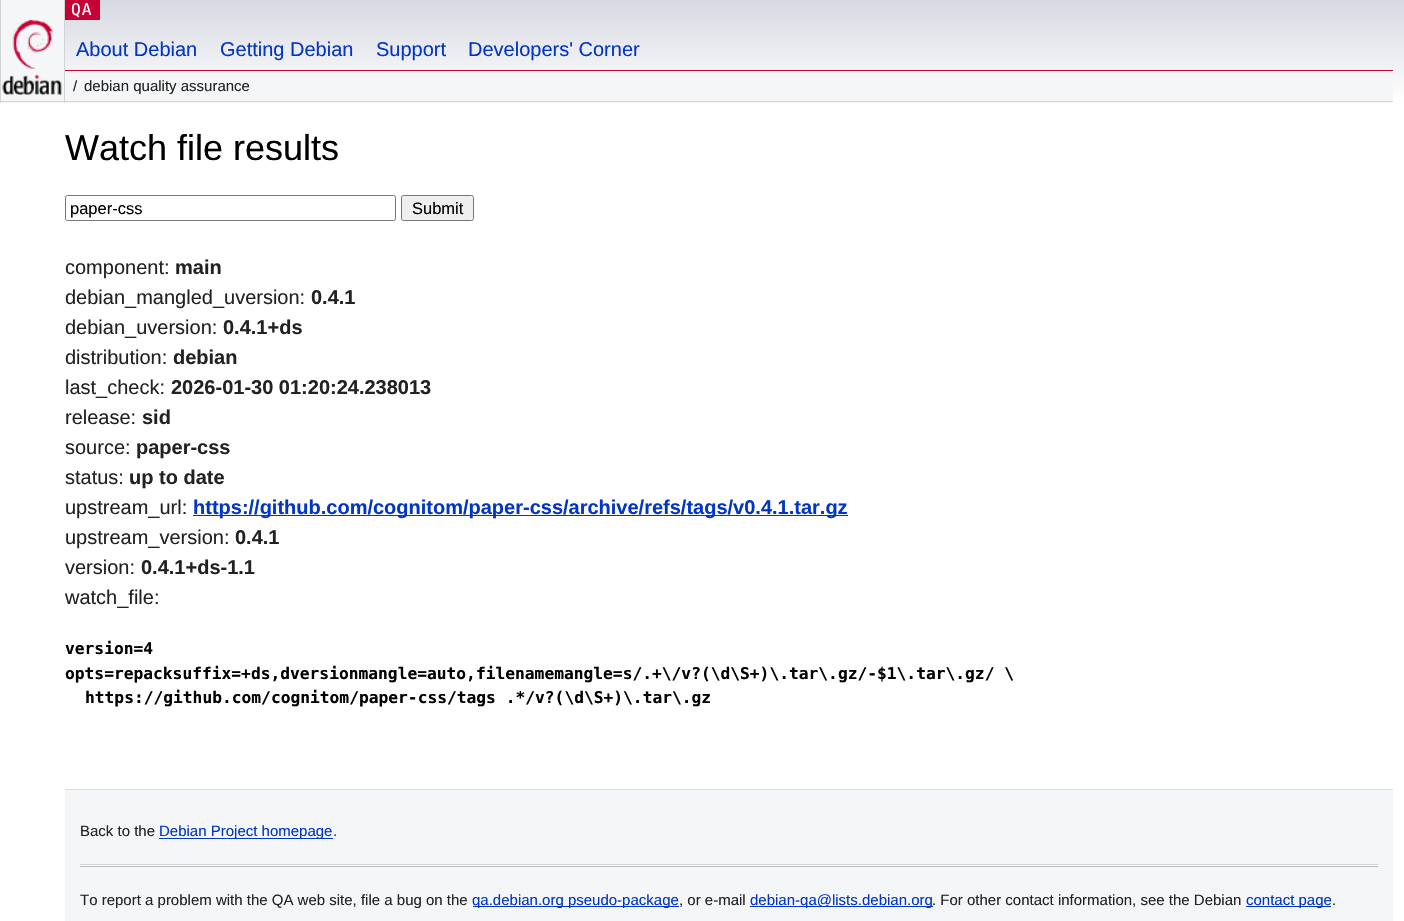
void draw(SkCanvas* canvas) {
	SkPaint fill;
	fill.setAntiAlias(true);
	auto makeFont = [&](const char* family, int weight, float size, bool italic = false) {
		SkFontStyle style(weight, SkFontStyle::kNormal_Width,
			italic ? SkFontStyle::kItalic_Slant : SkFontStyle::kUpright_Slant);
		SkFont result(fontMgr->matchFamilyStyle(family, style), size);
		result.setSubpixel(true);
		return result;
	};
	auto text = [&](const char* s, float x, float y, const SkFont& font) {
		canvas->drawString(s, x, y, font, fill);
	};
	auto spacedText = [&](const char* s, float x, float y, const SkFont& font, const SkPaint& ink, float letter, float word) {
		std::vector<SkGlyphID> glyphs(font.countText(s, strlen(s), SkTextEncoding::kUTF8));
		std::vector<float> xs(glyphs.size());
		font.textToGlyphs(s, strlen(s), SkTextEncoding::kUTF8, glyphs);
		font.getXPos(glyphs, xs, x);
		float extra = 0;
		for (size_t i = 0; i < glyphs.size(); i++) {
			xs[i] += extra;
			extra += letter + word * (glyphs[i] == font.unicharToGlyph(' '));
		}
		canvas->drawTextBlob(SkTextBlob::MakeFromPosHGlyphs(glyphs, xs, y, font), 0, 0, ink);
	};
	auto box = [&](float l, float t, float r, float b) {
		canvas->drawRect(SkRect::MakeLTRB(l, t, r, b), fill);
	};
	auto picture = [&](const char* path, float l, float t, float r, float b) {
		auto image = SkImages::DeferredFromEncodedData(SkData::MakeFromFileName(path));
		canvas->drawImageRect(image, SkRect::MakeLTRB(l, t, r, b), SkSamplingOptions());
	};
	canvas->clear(0xFFFFFFFF);
	{
		const SkColor colors[] = {0xFFD7D9E2, 0xFFFFFFFF};
		const float stops[] = {0, 1};
		const SkPoint ends[] = {{703, 0}, {703, 103}};
		fill.setShader(SkGradientShader::MakeLinear(ends, colors, stops, 2, SkTileMode::kClamp));
		fill.setAlpha(255);
	}
	box(65, 0, 1404, 97);
	fill.setShader(nullptr);
	fill.setColor(0xFFF5F6F7);
	box(1, 0, 64, 103);
	fill.setColor(0xFFD2D3D7);
	box(64, 0, 65, 103);
	box(0, 101, 65, 102);
	box(0, 0, 1, 103);
	picture("image0.png", 2, 19, 62, 95);
	fill.setColor(0xFFC70036);
	box(65, 0, 100, 20);
	box(65, 70, 1393, 71);
	fill.setColor(0xFFF5F6F7);
	box(65, 71, 1393, 103);
	fill.setColor(0xFFD2D3D7);
	box(65, 101, 1393, 102);
	fill.setStyle(SkPaint::kStroke_Style);
	fill.setStrokeWidth(1);
	fill.setColor(0xFF767676);
	canvas->drawRoundRect(SkRect::MakeLTRB(65.5f, 195.5f, 395.5f, 220.5f), 2, 2, fill);
	fill.setStyle(SkPaint::kFill_Style);
	fill.setColor(0xFFEFEFEF);
	canvas->drawRoundRect(SkRect::MakeLTRB(401.5f, 195.5f, 473.5f, 220.5f), 2, 2, fill);
	fill.setStyle(SkPaint::kStroke_Style);
	fill.setColor(0xFF767676);
	canvas->drawRoundRect(SkRect::MakeLTRB(401.5f, 195.5f, 473.5f, 220.5f), 2, 2, fill);
	fill.setStyle(SkPaint::kFill_Style);
	fill.setColor(0xFF0035C7);
	box(193, 515, 848, 516);
	fill.setColor(0xFFF5F6F7);
	box(65, 790, 1393, 921);
	fill.setColor(0xFFDFDFE0);
	box(65, 789, 1393, 790);
	fill.setColor(0xFF0035C7);
	box(159, 838, 333, 839);
	fill.setColor(0xFFBBBBBB);
	box(80, 866, 1378, 867);
	fill.setColor(0xFFD2D3D7);
	box(80, 864, 1378, 865);
	fill.setColor(0xFFFFFFFF);
	box(80, 865, 1378, 866);
	fill.setColor(0xFF0035C7);
	box(473, 906, 679, 907);
	box(750, 906, 933, 907);
	box(1246, 906, 1331, 907);
	auto font1 = makeFont("DejaVu Sans Mono", 400, 16.25f);
	fill.setColor(0xFFFFFFFF);
	spacedText("QA", 71, 15, font1, fill, 1, 0);
	auto font2 = makeFont("Liberation Sans", 400, 20);
	fill.setColor(0xFF0035C7);
	text("About Debian", 76, 56, font2);
	text("Getting Debian", 220, 56, font2);
	text("Support", 376, 56, font2);
	text("Developers' Corner", 468, 56, font2);
	auto font3 = makeFont("Liberation Sans", 400, 15);
	fill.setColor(0xFF222222);
	text("/", 73, 91, font3);
	text("debian quality assurance", 84, 91, font3);
	auto font4 = makeFont("Liberation Sans", 400, 36);
	fill.setColor(0xFF000000);
	text("Watch file results", 65, 160, font4);
	auto font5 = makeFont("Liberation Sans", 400, 16.5f);
	text("paper-css", 70, 214, font5);
	text("Submit", 412, 214, font5);
	fill.setColor(0xFF222222);
	text("component:", 65, 274, font2);
	auto font6 = makeFont("Liberation Sans", 700, 20);
	text("main", 175, 274, font6);
	text("debian_mangled_uversion:", 65, 304, font2);
	text("0.4.1", 311, 304, font6);
	text("debian_uversion:", 65, 334, font2);
	text("0.4.1+ds", 223, 334, font6);
	text("distribution:", 65, 364, font2);
	text("debian", 173, 364, font6);
	text("last_check:", 65, 394, font2);
	text("2026-01-30 01:20:24.238013", 171, 394, font6);
	text("release:", 65, 424, font2);
	text("sid", 142, 424, font6);
	text("source:", 65, 454, font2);
	text("paper-css", 136, 454, font6);
	text("status:", 65, 484, font2);
	text("up to date", 129, 484, font6);
	text("upstream_url:", 65, 514, font2);
	fill.setColor(0xFF0035C7);
	text("https://github.com/cognitom/paper-css/archive/refs/tags/v0.4.1.tar.gz", 193, 514, font6);
	fill.setColor(0xFF222222);
	text("upstream_version:", 65, 544, font2);
	text("0.4.1", 235, 544, font6);
	text("version:", 65, 574, font2);
	text("0.4.1+ds-1.1", 141, 574, font6);
	text("watch_file:", 65, 604, font2);
	auto font7 = makeFont("DejaVu Sans Mono", 700, 16.25f);
	fill.setColor(0xFF000000);
	text("version=4", 65, 654, font7);
	text("opts=repacksuffix=+ds,dversionmangle=auto,filenamemangle=s/.+\\/v?(\\d\\S+)\\.tar\\.gz/-$1\\.tar\\.gz/ \\", 65, 679, font7);
	text("https://github.com/cognitom/paper-css/tags .*/v?(\\d\\S+)\\.tar\\.gz", 85, 703, font7);
	fill.setColor(0xFF222222);
	text("Back to the", 80, 836, font3);
	fill.setColor(0xFF0035C7);
	text("Debian Project homepage", 159, 836, font3);
	fill.setColor(0xFF222222);
	text(".", 333, 836, font3);
	text("To report a problem with the QA web site, file a bug on the", 80, 905, font3);
	fill.setColor(0xFF0035C7);
	text("qa.debian.org pseudo-package", 472, 905, font3);
	fill.setColor(0xFF222222);
	text(", or e-mail", 679, 905, font3);
	fill.setColor(0xFF0035C7);
	text("debian-qa@lists.debian.org", 750, 905, font3);
	fill.setColor(0xFF222222);
	text(". For other contact information, see the Debian", 932, 905, font3);
	fill.setColor(0xFF0035C7);
	text("contact page", 1246, 905, font3);
	fill.setColor(0xFF222222);
	text(".", 1332, 905, font3);
}
